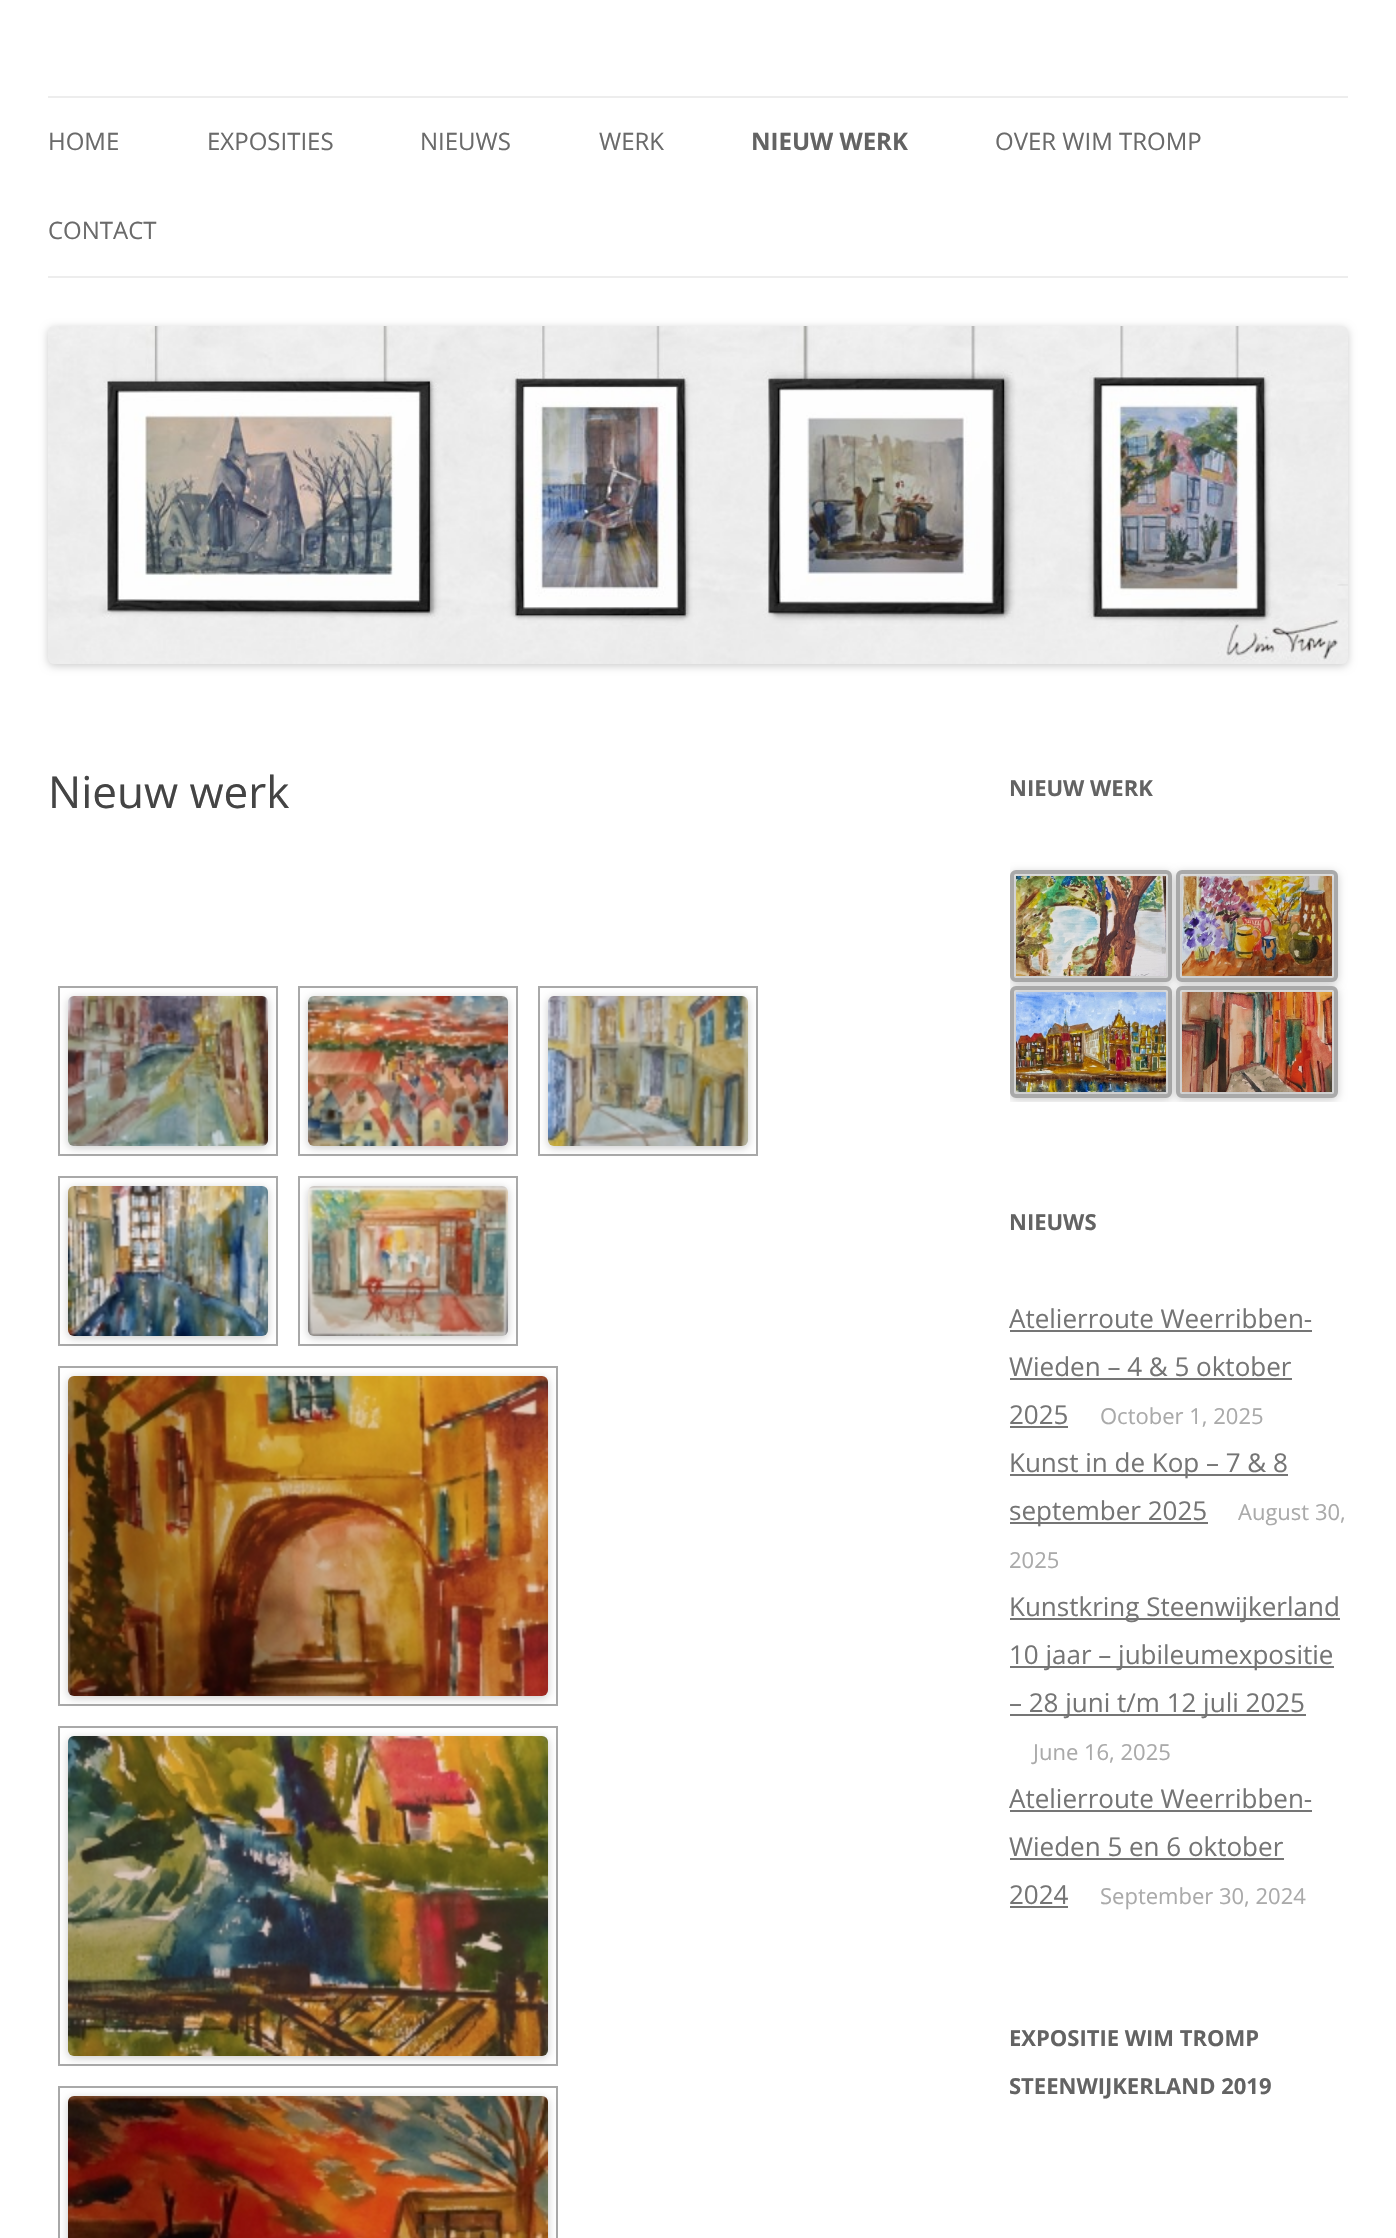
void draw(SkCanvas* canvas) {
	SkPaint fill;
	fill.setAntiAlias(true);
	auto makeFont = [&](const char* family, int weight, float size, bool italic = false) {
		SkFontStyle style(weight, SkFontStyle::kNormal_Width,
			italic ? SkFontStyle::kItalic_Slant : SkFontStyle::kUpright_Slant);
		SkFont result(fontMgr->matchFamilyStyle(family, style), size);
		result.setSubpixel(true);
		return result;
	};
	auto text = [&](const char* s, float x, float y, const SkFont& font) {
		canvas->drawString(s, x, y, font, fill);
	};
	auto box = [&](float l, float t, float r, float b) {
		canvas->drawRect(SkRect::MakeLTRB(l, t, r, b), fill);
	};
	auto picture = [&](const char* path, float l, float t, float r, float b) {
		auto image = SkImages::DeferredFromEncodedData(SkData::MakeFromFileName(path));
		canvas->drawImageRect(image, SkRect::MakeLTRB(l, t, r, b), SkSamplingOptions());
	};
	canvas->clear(0xFFFFFFFF);
	fill.setColor(0xFFEDEDED);
	box(48, 96, 1348, 98);
	box(48, 276, 1348, 278);
	fill.setColor(0x33000000);
	fill.setMaskFilter(SkMaskFilter::MakeBlur(kNormal_SkBlurStyle, 4));
	canvas->drawRoundRect(SkRect::MakeLTRB(48, 328, 1348, 666), 6, 6, fill);
	fill.setMaskFilter(nullptr);
	picture("image0.png", 48, 326, 1348, 664);
	fill.setStyle(SkPaint::kStroke_Style);
	fill.setStrokeWidth(2);
	fill.setColor(0xFFA9A9A9);
	canvas->drawRect(SkRect::MakeLTRB(59, 987, 277, 1155), fill);
	fill.setStyle(SkPaint::kFill_Style);
	fill.setColor(0x33000000);
	fill.setMaskFilter(SkMaskFilter::MakeBlur(kNormal_SkBlurStyle, 4));
	canvas->drawRoundRect(SkRect::MakeLTRB(68, 998, 268, 1148), 6, 6, fill);
	fill.setMaskFilter(nullptr);
	picture("image1.png", 68, 996, 268, 1146);
	fill.setStyle(SkPaint::kStroke_Style);
	fill.setColor(0xFFA9A9A9);
	canvas->drawRect(SkRect::MakeLTRB(299, 987, 517, 1155), fill);
	fill.setStyle(SkPaint::kFill_Style);
	fill.setColor(0x33000000);
	fill.setMaskFilter(SkMaskFilter::MakeBlur(kNormal_SkBlurStyle, 4));
	canvas->drawRoundRect(SkRect::MakeLTRB(308, 998, 508, 1148), 6, 6, fill);
	fill.setMaskFilter(nullptr);
	picture("image2.png", 308, 996, 508, 1146);
	fill.setStyle(SkPaint::kStroke_Style);
	fill.setColor(0xFFA9A9A9);
	canvas->drawRect(SkRect::MakeLTRB(539, 987, 757, 1155), fill);
	fill.setStyle(SkPaint::kFill_Style);
	fill.setColor(0x33000000);
	fill.setMaskFilter(SkMaskFilter::MakeBlur(kNormal_SkBlurStyle, 4));
	canvas->drawRoundRect(SkRect::MakeLTRB(548, 998, 748, 1148), 6, 6, fill);
	fill.setMaskFilter(nullptr);
	picture("image3.png", 548, 996, 748, 1146);
	fill.setStyle(SkPaint::kStroke_Style);
	fill.setColor(0xFFA9A9A9);
	canvas->drawRect(SkRect::MakeLTRB(59, 1177, 277, 1345), fill);
	fill.setStyle(SkPaint::kFill_Style);
	fill.setColor(0x33000000);
	fill.setMaskFilter(SkMaskFilter::MakeBlur(kNormal_SkBlurStyle, 4));
	canvas->drawRoundRect(SkRect::MakeLTRB(68, 1188, 268, 1338), 6, 6, fill);
	fill.setMaskFilter(nullptr);
	picture("image4.png", 68, 1186, 268, 1336);
	fill.setStyle(SkPaint::kStroke_Style);
	fill.setColor(0xFFA9A9A9);
	canvas->drawRect(SkRect::MakeLTRB(299, 1177, 517, 1345), fill);
	fill.setStyle(SkPaint::kFill_Style);
	fill.setColor(0x33000000);
	fill.setMaskFilter(SkMaskFilter::MakeBlur(kNormal_SkBlurStyle, 4));
	canvas->drawRoundRect(SkRect::MakeLTRB(308, 1188, 508, 1338), 6, 6, fill);
	fill.setMaskFilter(nullptr);
	picture("image5.png", 308, 1186, 508, 1336);
	fill.setStyle(SkPaint::kStroke_Style);
	fill.setColor(0xFFA9A9A9);
	canvas->drawRect(SkRect::MakeLTRB(59, 1367, 557, 1705), fill);
	fill.setStyle(SkPaint::kFill_Style);
	fill.setColor(0x33000000);
	fill.setMaskFilter(SkMaskFilter::MakeBlur(kNormal_SkBlurStyle, 4));
	canvas->drawRoundRect(SkRect::MakeLTRB(68, 1378, 548, 1698), 6, 6, fill);
	fill.setMaskFilter(nullptr);
	picture("image6.png", 68, 1376, 548, 1696);
	fill.setStyle(SkPaint::kStroke_Style);
	fill.setColor(0xFFA9A9A9);
	canvas->drawRect(SkRect::MakeLTRB(59, 1727, 557, 2065), fill);
	fill.setStyle(SkPaint::kFill_Style);
	fill.setColor(0x33000000);
	fill.setMaskFilter(SkMaskFilter::MakeBlur(kNormal_SkBlurStyle, 4));
	canvas->drawRoundRect(SkRect::MakeLTRB(68, 1738, 548, 2058), 6, 6, fill);
	fill.setMaskFilter(nullptr);
	picture("image7.png", 68, 1736, 548, 2056);
	fill.setStyle(SkPaint::kStroke_Style);
	fill.setColor(0xFFA9A9A9);
	canvas->drawRect(SkRect::MakeLTRB(59, 2087, 557, 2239), fill);
	fill.setStyle(SkPaint::kFill_Style);
	fill.setColor(0x33000000);
	fill.setMaskFilter(SkMaskFilter::MakeBlur(kNormal_SkBlurStyle, 4));
	canvas->drawRoundRect(SkRect::MakeLTRB(68, 2098, 548, 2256), 6, 6, fill);
	fill.setMaskFilter(nullptr);
	picture("image8.png", 68, 2096, 548, 2238);
	canvas->save();
	canvas->clipRect(SkRect::MakeLTRB(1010, 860, 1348, 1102));
	fill.setMaskFilter(SkMaskFilter::MakeBlur(kNormal_SkBlurStyle, 4));
	canvas->drawRoundRect(SkRect::MakeLTRB(1010, 872, 1172, 984), 6, 6, fill);
	fill.setMaskFilter(nullptr);
	canvas->restore();
	fill.setStyle(SkPaint::kStroke_Style);
	fill.setStrokeWidth(4);
	fill.setColor(0xFFA9A9A9);
	canvas->drawRoundRect(SkRect::MakeLTRB(1012, 872, 1170, 980), 4, 4, fill);
	picture("image9.png", 1016, 876, 1166, 976);
	fill.setStyle(SkPaint::kFill_Style);
	fill.setColor(0x33000000);
	fill.setMaskFilter(SkMaskFilter::MakeBlur(kNormal_SkBlurStyle, 4));
	canvas->drawRoundRect(SkRect::MakeLTRB(1176, 872, 1338, 984), 6, 6, fill);
	fill.setMaskFilter(nullptr);
	fill.setStyle(SkPaint::kStroke_Style);
	fill.setColor(0xFFA9A9A9);
	canvas->drawRoundRect(SkRect::MakeLTRB(1178, 872, 1336, 980), 4, 4, fill);
	picture("image10.png", 1182, 876, 1332, 976);
	canvas->save();
	canvas->clipRect(SkRect::MakeLTRB(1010, 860, 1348, 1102));
	fill.setStyle(SkPaint::kFill_Style);
	fill.setColor(0x33000000);
	fill.setMaskFilter(SkMaskFilter::MakeBlur(kNormal_SkBlurStyle, 4));
	canvas->drawRoundRect(SkRect::MakeLTRB(1010, 988, 1172, 1100), 6, 6, fill);
	fill.setMaskFilter(nullptr);
	canvas->restore();
	fill.setStyle(SkPaint::kStroke_Style);
	fill.setColor(0xFFA9A9A9);
	canvas->drawRoundRect(SkRect::MakeLTRB(1012, 988, 1170, 1096), 4, 4, fill);
	picture("image11.png", 1016, 992, 1166, 1092);
	canvas->save();
	canvas->clipRect(SkRect::MakeLTRB(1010, 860, 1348, 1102));
	fill.setStyle(SkPaint::kFill_Style);
	fill.setColor(0x33000000);
	fill.setMaskFilter(SkMaskFilter::MakeBlur(kNormal_SkBlurStyle, 4));
	canvas->drawRoundRect(SkRect::MakeLTRB(1176, 988, 1338, 1100), 6, 6, fill);
	fill.setMaskFilter(nullptr);
	canvas->restore();
	fill.setStyle(SkPaint::kStroke_Style);
	fill.setColor(0xFFA9A9A9);
	canvas->drawRoundRect(SkRect::MakeLTRB(1178, 988, 1336, 1096), 4, 4, fill);
	picture("image12.png", 1182, 992, 1332, 1092);
	fill.setStyle(SkPaint::kFill_Style);
	fill.setColor(0xFF757575);
	box(1010, 1330, 1312, 1332);
	box(1010, 1378, 1292, 1380);
	box(1010, 1426, 1068, 1428);
	box(1010, 1474, 1288, 1476);
	box(1010, 1522, 1208, 1524);
	box(1010, 1618, 1340, 1620);
	box(1010, 1666, 1334, 1668);
	box(1010, 1714, 1306, 1716);
	box(1010, 1810, 1312, 1812);
	box(1010, 1858, 1284, 1860);
	box(1010, 1906, 1068, 1908);
	auto font1 = makeFont("Open Sans", 400, 24);
	fill.setColor(0xFF6A6A6A);
	text("HOME", 48, 150, font1);
	text("EXPOSITIES", 207, 150, font1);
	text("NIEUWS", 420, 150, font1);
	text("WERK", 599, 150, font1);
	auto font2 = makeFont("Open Sans", 700, 24);
	fill.setColor(0xFF636363);
	text("NIEUW WERK", 751, 150, font2);
	fill.setColor(0xFF6A6A6A);
	text("OVER WIM TROMP", 995, 150, font1);
	text("CONTACT", 48, 239, font1);
	auto font3 = makeFont("Open Sans", 400, 44);
	fill.setColor(0xFF444444);
	text("Nieuw werk", 48, 808, font3);
	auto font4 = makeFont("Open Sans", 700, 22);
	fill.setColor(0xFF636363);
	text("NIEUW WERK", 1009, 796, font4);
	text("NIEUWS", 1009, 1230, font4);
	auto font5 = makeFont("Open Sans", 400, 26);
	fill.setColor(0xFF757575);
	text("Atelierroute Weerribben-", 1009, 1328, font5);
	text("Wieden – 4 & 5 oktober", 1009, 1376, font5);
	text("2025", 1009, 1424, font5);
	auto font6 = makeFont("Open Sans", 400, 22);
	fill.setColor(0xFFAAAAAA);
	text("October 1, 2025", 1100, 1424, font6);
	fill.setColor(0xFF757575);
	text("Kunst in de Kop – 7 & 8", 1009, 1472, font5);
	text("september 2025", 1009, 1520, font5);
	fill.setColor(0xFFAAAAAA);
	text("August 30,", 1238, 1520, font6);
	text("2025", 1009, 1568, font6);
	fill.setColor(0xFF757575);
	text("Kunstkring Steenwijkerland", 1009, 1616, font5);
	text("10 jaar – jubileumexpositie", 1009, 1664, font5);
	text("– 28 juni t/m 12 juli 2025", 1009, 1712, font5);
	fill.setColor(0xFFAAAAAA);
	text("June 16, 2025", 1033, 1760, font6);
	fill.setColor(0xFF757575);
	text("Atelierroute Weerribben-", 1009, 1808, font5);
	text("Wieden 5 en 6 oktober", 1009, 1856, font5);
	text("2024", 1009, 1904, font5);
	fill.setColor(0xFFAAAAAA);
	text("September 30, 2024", 1100, 1904, font6);
	fill.setColor(0xFF636363);
	text("EXPOSITIE WIM TROMP", 1009, 2046, font4);
	text("STEENWIJKERLAND 2019", 1009, 2094, font4);
}
